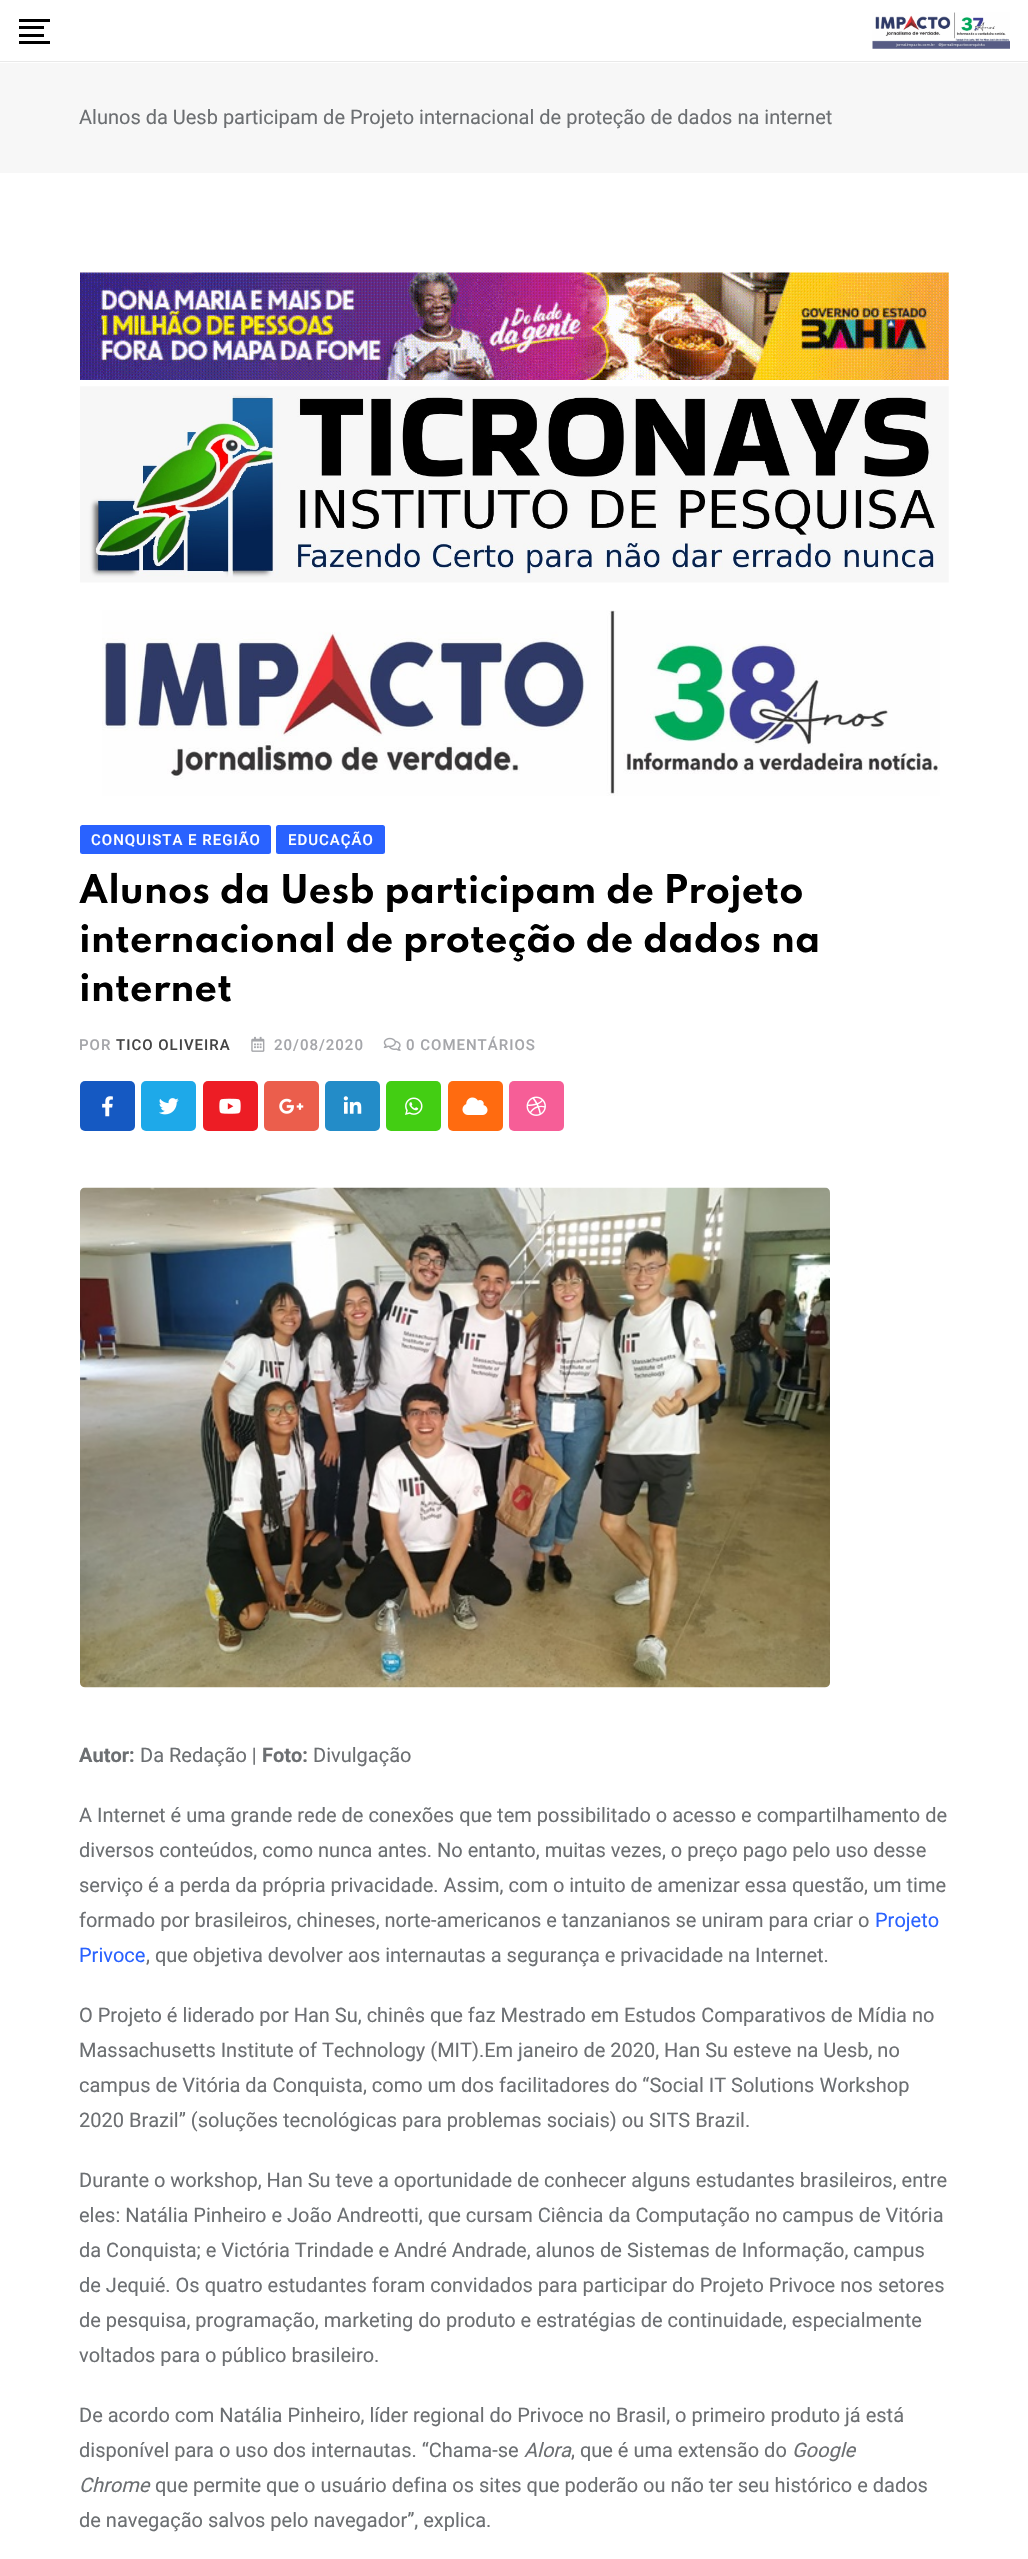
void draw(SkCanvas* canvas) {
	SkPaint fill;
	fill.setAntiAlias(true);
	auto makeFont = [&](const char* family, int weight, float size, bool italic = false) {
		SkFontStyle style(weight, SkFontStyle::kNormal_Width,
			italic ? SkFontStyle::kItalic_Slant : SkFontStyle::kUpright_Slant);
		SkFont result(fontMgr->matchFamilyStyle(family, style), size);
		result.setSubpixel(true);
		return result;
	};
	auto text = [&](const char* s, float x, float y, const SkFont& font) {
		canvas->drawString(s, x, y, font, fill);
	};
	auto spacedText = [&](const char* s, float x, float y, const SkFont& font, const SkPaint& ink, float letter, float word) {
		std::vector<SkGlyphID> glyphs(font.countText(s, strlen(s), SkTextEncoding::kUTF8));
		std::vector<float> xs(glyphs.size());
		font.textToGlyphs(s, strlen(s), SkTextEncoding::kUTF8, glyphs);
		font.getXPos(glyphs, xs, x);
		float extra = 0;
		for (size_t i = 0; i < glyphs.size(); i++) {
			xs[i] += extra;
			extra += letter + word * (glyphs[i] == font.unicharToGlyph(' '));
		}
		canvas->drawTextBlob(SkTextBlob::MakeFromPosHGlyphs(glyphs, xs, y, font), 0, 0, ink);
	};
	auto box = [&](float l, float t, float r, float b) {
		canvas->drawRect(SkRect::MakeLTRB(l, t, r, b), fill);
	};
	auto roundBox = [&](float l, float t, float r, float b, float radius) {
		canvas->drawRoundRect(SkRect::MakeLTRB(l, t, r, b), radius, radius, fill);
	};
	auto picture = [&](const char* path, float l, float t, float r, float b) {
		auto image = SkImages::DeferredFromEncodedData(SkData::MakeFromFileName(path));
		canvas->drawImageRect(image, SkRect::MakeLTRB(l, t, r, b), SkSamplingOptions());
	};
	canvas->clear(0xFFFFFFFF);
	fill.setColor(0xFFE9E9E9);
	box(0, 61, 1028, 62);
	fill.setColor(0xFF000000);
	box(19, 19, 50, 22);
	box(19, 26, 44, 29);
	box(19, 34, 44, 37);
	box(19, 41, 50, 44);
	picture("image0.png", 872, 12, 1010, 49);
	fill.setColor(0xFFF7F7F7);
	box(0, 63, 1028, 173);
	picture("image1.png", 80, 272, 949, 380);
	picture("image2.png", 80, 386, 949, 583);
	picture("image3.png", 102, 610, 940, 796);
	fill.setColor(0xFF2962FF);
	roundBox(80, 825, 271, 854, 2.5f);
	roundBox(276, 825, 385, 854, 2.5f);
	picture("image4.png", 251, 1036, 265, 1052);
	picture("image5.png", 383, 1037, 401, 1051);
	fill.setColor(0xFF1559C2);
	roundBox(80, 1081, 135, 1131, 5);
	picture("image6.png", 102, 1096, 113, 1117);
	fill.setColor(0xFF1EA9E9);
	roundBox(141, 1081, 196, 1131, 5);
	picture("image7.png", 159, 1098, 179, 1115);
	fill.setColor(0xFFED1D25);
	roundBox(203, 1081, 258, 1131, 5);
	picture("image8.png", 219, 1098, 241, 1114);
	fill.setColor(0xFFEB5E4C);
	roundBox(264, 1081, 319, 1131, 5);
	picture("image9.png", 279, 1098, 304, 1114);
	fill.setColor(0xFF238CC8);
	roundBox(325, 1081, 380, 1131, 5);
	picture("image10.png", 343, 1096, 362, 1114);
	fill.setColor(0xFF43CE13);
	roundBox(386, 1081, 441, 1131, 5);
	picture("image11.png", 405, 1097, 423, 1115);
	fill.setColor(0xFFFF6B10);
	roundBox(448, 1081, 503, 1131, 5);
	picture("image12.png", 462, 1097, 488, 1115);
	fill.setColor(0xFFF65E97);
	roundBox(509, 1081, 564, 1131, 5);
	picture("image13.png", 526, 1096, 546, 1116);
	picture("image14.png", 80, 1187, 830, 1688);
	auto font1 = makeFont("Roboto", 400, 20);
	fill.setColor(0xFF6C6F72);
	text("Alunos da Uesb participam de Projeto internacional de proteção de dados na internet", 79, 124, font1);
	auto font2 = makeFont("Roboto", 500, 15);
	fill.setColor(0xFFFFFFFF);
	spacedText("CONQUISTA E REGIÃO", 91, 845, font2, fill, 1, 0);
	spacedText("EDUCAÇÃO", 288, 845, font2, fill, 1, 0);
	auto font3 = makeFont("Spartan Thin", 700, 35);
	fill.setColor(0xFF000000);
	text("Alunos da Uesb participam de Projeto", 79, 903, font3);
	text("internacional de proteção de dados na", 79, 952, font3);
	text("internet", 79, 1001, font3);
	fill.setColor(0xFFA5A6AA);
	spacedText("POR", 79, 1050, font2, fill, 1, 0);
	fill.setColor(0xFF444444);
	spacedText("TICO OLIVEIRA", 116, 1050, font2, fill, 1, 0);
	fill.setColor(0xFFA5A6AA);
	spacedText("20/08/2020", 274, 1050, font2, fill, 1, 0);
	spacedText("0 COMENTÁRIOS", 406, 1050, font2, fill, 1, 0);
	auto font4 = makeFont("Roboto", 700, 20);
	fill.setColor(0xFF6C6F72);
	text("Autor:", 79, 1762, font4);
	text("Da Redação |", 140, 1762, font1);
	text("Foto:", 262, 1762, font4);
	text("Divulgação", 313, 1762, font1);
	text("A Internet é uma grande rede de conexões que tem possibilitado o acesso e compartilhamento de", 79, 1822, font1);
	text("diversos conteúdos, como nunca antes. No entanto, muitas vezes, o preço pago pelo uso desse", 79, 1857, font1);
	text("serviço é a perda da própria privacidade. Assim, com o intuito de amenizar essa questão, um time", 79, 1892, font1);
	text("formado por brasileiros, chineses, norte-americanos e tanzanianos se uniram para criar o", 79, 1927, font1);
	fill.setColor(0xFF2962FF);
	text("Projeto", 875, 1927, font1);
	text("Privoce", 79, 1962, font1);
	fill.setColor(0xFF6C6F72);
	text(", que objetiva devolver aos internautas a segurança e privacidade na Internet.", 146, 1962, font1);
	text("O Projeto é liderado por Han Su, chinês que faz Mestrado em Estudos Comparativos de Mídia no", 79, 2022, font1);
	text("Massachusetts Institute of Technology (MIT).Em janeiro de 2020, Han Su esteve na Uesb, no", 79, 2057, font1);
	text("campus de Vitória da Conquista, como um dos facilitadores do “Social IT Solutions Workshop", 79, 2092, font1);
	text("2020 Brazil” (soluções tecnológicas para problemas sociais) ou SITS Brazil.", 79, 2127, font1);
	text("Durante o workshop, Han Su teve a oportunidade de conhecer alguns estudantes brasileiros, entre", 79, 2187, font1);
	text("eles: Natália Pinheiro e João Andreotti, que cursam Ciência da Computação no campus de Vitória", 79, 2222, font1);
	text("da Conquista; e Victória Trindade e André Andrade, alunos de Sistemas de Informação, campus", 79, 2257, font1);
	text("de Jequié. Os quatro estudantes foram convidados para participar do Projeto Privoce nos setores", 79, 2292, font1);
	text("de pesquisa, programação, marketing do produto e estratégias de continuidade, especialmente", 79, 2327, font1);
	text("voltados para o público brasileiro.", 79, 2362, font1);
	text("De acordo com Natália Pinheiro, líder regional do Privoce no Brasil, o primeiro produto já está", 79, 2422, font1);
	text("disponível para o uso dos internautas. “Chama-se", 79, 2457, font1);
	auto font5 = makeFont("Roboto", 400, 20, true);
	text("Alora", 524, 2457, font5);
	text(", que é uma extensão do", 571, 2457, font1);
	text("Google", 792, 2457, font5);
	text("Chrome", 79, 2492, font5);
	text("que permite que o usuário defina os sites que poderão ou não ter seu histórico e dados", 155, 2492, font1);
	text("de navegação salvos pelo navegador”, explica.", 79, 2527, font1);
}
